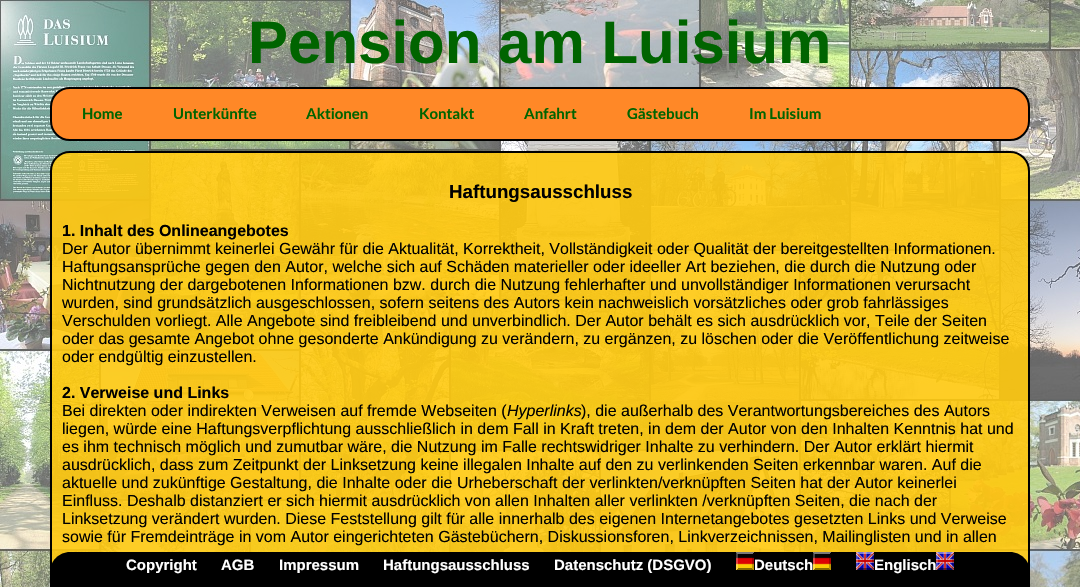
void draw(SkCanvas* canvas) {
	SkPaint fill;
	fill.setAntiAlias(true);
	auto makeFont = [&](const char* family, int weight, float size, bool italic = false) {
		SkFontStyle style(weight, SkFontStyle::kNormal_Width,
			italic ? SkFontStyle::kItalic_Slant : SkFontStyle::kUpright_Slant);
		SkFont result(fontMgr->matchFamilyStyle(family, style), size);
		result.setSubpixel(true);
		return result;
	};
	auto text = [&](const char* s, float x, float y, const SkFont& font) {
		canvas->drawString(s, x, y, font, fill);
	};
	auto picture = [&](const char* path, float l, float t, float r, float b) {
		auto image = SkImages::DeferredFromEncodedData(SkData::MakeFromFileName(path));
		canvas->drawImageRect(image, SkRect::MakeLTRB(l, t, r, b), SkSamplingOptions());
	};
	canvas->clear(0xFFFFFFFF);
	picture("image0.png", 0, 0, 1080, 587);
	fill.setColor(0xFFFF8827);
	canvas->drawRoundRect(SkRect::MakeLTRB(51, 88, 1029, 140), 19, 19, fill);
	fill.setStyle(SkPaint::kStroke_Style);
	fill.setStrokeWidth(2);
	fill.setColor(0xFF000000);
	canvas->drawRoundRect(SkRect::MakeLTRB(51, 88, 1029, 140), 19, 19, fill);
	fill.setStyle(SkPaint::kFill_Style);
	fill.setColor(0xE6FFC90E);
	canvas->drawRoundRect(SkRect::MakeLTRB(51, 152, 1029, 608), 19, 19, fill);
	fill.setStyle(SkPaint::kStroke_Style);
	fill.setColor(0xFF000000);
	canvas->drawRoundRect(SkRect::MakeLTRB(51, 152, 1029, 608), 19, 19, fill);
	fill.setStyle(SkPaint::kFill_Style);
	canvas->drawPath(SkPathBuilder().moveTo(70, 552).lineTo(1010, 552).cubicTo(1021, 552, 1030, 561, 1030, 572).lineTo(1030, 587).lineTo(50, 587).lineTo(50, 572).cubicTo(50, 561, 59, 552, 70, 552).close().detach(), fill);
	picture("image1.png", 736, 552, 754, 570);
	picture("image1.png", 813, 552, 831, 570);
	picture("image2.png", 856, 552, 874, 570);
	picture("image2.png", 936, 552, 954, 570);
	auto font1 = makeFont("Liberation Sans", 700, 60);
	fill.setColor(0xFF006400);
	text("Pension am Luisium", 248, 63, font1);
	auto font2 = makeFont("Lato", 700, 15);
	text("Home", 82, 119, font2);
	text("Unterkünfte", 173, 119, font2);
	text("Aktionen", 306, 119, font2);
	text("Kontakt", 419, 119, font2);
	text("Anfahrt", 524, 119, font2);
	text("Gästebuch", 627, 119, font2);
	text("Im Luisium", 749, 119, font2);
	auto font3 = makeFont("Liberation Sans", 700, 18.75f);
	fill.setColor(0xFF000000);
	text("Haftungsausschluss", 449, 198, font3);
	auto font4 = makeFont("Liberation Sans", 700, 16);
	text("1. Inhalt des Onlineangebotes", 62, 236, font4);
	auto font5 = makeFont("Liberation Sans", 400, 16);
	text("Der Autor übernimmt keinerlei Gewähr für die Aktualität, Korrektheit, Vollständigkeit oder Qualität der bereitgestellten Informationen.", 62, 254, font5);
	text("Haftungsansprüche gegen den Autor, welche sich auf Schäden materieller oder ideeller Art beziehen, die durch die Nutzung oder", 62, 272, font5);
	text("Nichtnutzung der dargebotenen Informationen bzw. durch die Nutzung fehlerhafter und unvollständiger Informationen verursacht", 62, 290, font5);
	text("wurden, sind grundsätzlich ausgeschlossen, sofern seitens des Autors kein nachweislich vorsätzliches oder grob fahrlässiges", 62, 308, font5);
	text("Verschulden vorliegt. Alle Angebote sind freibleibend und unverbindlich. Der Autor behält es sich ausdrücklich vor, Teile der Seiten", 62, 326, font5);
	text("oder das gesamte Angebot ohne gesonderte Ankündigung zu verändern, zu ergänzen, zu löschen oder die Veröffentlichung zeitweise", 62, 344, font5);
	text("oder endgültig einzustellen.", 62, 362, font5);
	text("2. Verweise und Links", 62, 398, font4);
	text("Bei direkten oder indirekten Verweisen auf fremde Webseiten (", 62, 416, font5);
	auto font6 = makeFont("Liberation Sans", 400, 16, true);
	text("Hyperlinks", 507, 416, font6);
	text("), die außerhalb des Verantwortungsbereiches des Autors", 581, 416, font5);
	text("liegen, würde eine Haftungsverpflichtung ausschließlich in dem Fall in Kraft treten, in dem der Autor von den Inhalten Kenntnis hat und", 62, 434, font5);
	text("es ihm technisch möglich und zumutbar wäre, die Nutzung im Falle rechtswidriger Inhalte zu verhindern. Der Autor erklärt hiermit", 62, 452, font5);
	text("ausdrücklich, dass zum Zeitpunkt der Linksetzung keine illegalen Inhalte auf den zu verlinkenden Seiten erkennbar waren. Auf die", 62, 470, font5);
	text("aktuelle und zukünftige Gestaltung, die Inhalte oder die Urheberschaft der verlinkten/verknüpften Seiten hat der Autor keinerlei", 62, 488, font5);
	text("Einfluss. Deshalb distanziert er sich hiermit ausdrücklich von allen Inhalten aller verlinkten /verknüpften Seiten, die nach der", 62, 506, font5);
	text("Linksetzung verändert wurden. Diese Feststellung gilt für alle innerhalb des eigenen Internetangebotes gesetzten Links und Verweise", 62, 524, font5);
	text("sowie für Fremdeinträge in vom Autor eingerichteten Gästebüchern, Diskussionsforen, Linkverzeichnissen, Mailinglisten und in allen", 62, 542, font5);
	auto font7 = makeFont("Liberation Sans", 700, 15);
	fill.setColor(0xFFFFFFFF);
	text("Copyright", 126, 570, font7);
	text("AGB", 221, 570, font7);
	text("Impressum", 279, 570, font7);
	text("Haftungsausschluss", 383, 570, font7);
	text("Datenschutz (DSGVO)", 554, 570, font7);
	text("Deutsch", 754, 570, font7);
	text("Englisch", 874, 570, font7);
}
